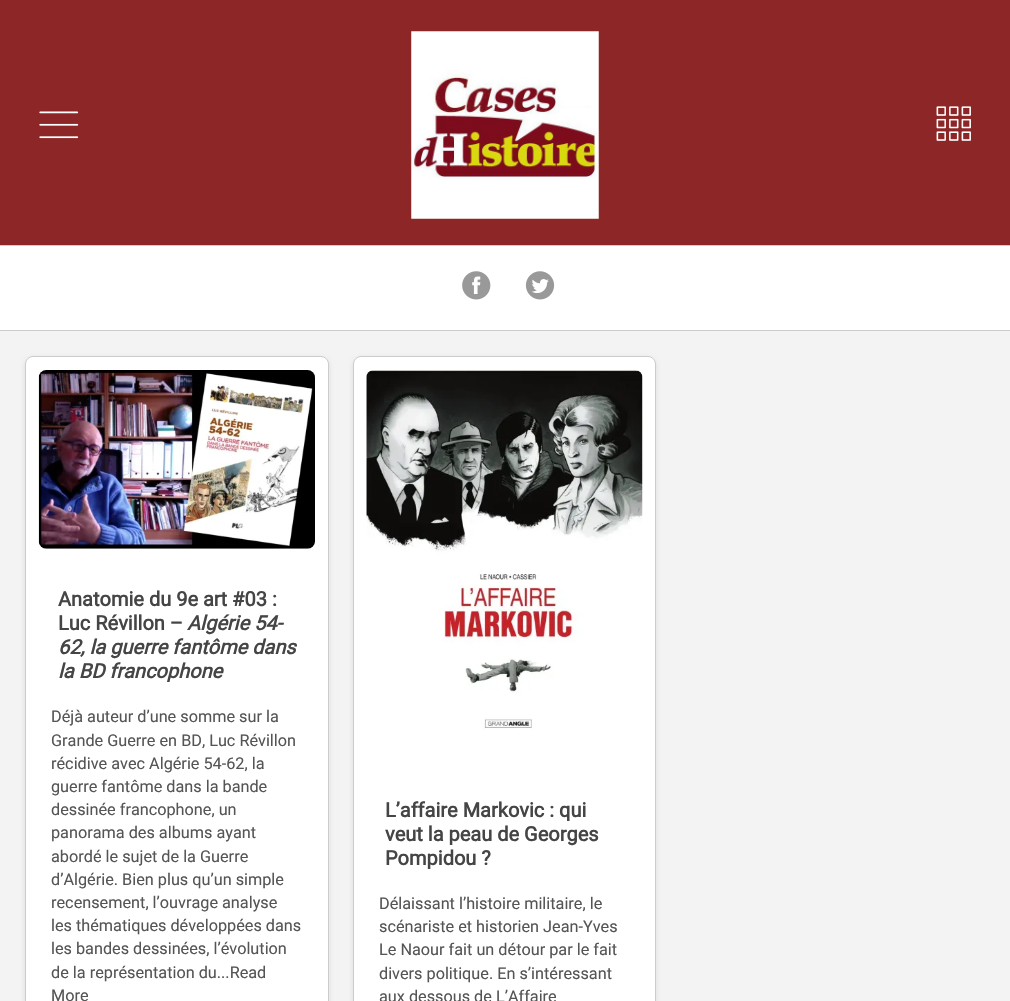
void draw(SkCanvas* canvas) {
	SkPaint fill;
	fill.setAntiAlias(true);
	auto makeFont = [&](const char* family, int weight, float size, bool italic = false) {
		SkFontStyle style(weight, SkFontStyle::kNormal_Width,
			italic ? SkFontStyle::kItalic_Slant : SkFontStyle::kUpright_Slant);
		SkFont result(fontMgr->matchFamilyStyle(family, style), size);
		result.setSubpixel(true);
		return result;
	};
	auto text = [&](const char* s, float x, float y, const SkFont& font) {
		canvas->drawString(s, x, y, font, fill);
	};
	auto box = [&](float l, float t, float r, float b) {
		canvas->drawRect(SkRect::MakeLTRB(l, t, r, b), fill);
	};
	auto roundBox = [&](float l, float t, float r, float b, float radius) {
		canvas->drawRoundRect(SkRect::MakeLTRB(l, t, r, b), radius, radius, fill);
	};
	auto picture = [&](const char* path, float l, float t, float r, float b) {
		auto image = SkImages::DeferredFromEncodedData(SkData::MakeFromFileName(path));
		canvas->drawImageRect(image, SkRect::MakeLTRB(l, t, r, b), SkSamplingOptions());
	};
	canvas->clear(0xFFFFFFFF);
	fill.setColor(0xFF8D2727);
	box(0, 0, 1010, 245);
	picture("image0.png", 39, 111, 79, 139);
	picture("image1.png", 411, 31, 599, 219);
	picture("image2.png", 936, 106, 971, 141);
	fill.setColor(0xFFCCCCCC);
	box(0, 245, 1010, 246);
	box(0, 330, 1010, 331);
	picture("image3.png", 462, 271, 491, 300);
	picture("image4.png", 525, 271, 555, 300);
	fill.setColor(0xFFF3F3F3);
	box(0, 331, 1010, 1001);
	fill.setColor(0x1A000000);
	fill.setMaskFilter(SkMaskFilter::MakeBlur(kNormal_SkBlurStyle, 2));
	canvas->drawRoundRect(SkRect::MakeLTRB(25, 358, 329, 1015), 8, 8, fill);
	fill.setMaskFilter(nullptr);
	fill.setColor(0xFFFFFFFF);
	roundBox(25, 356, 329, 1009, 8);
	fill.setStyle(SkPaint::kStroke_Style);
	fill.setStrokeWidth(1);
	fill.setColor(0x33000000);
	canvas->drawRoundRect(SkRect::MakeLTRB(25.5f, 356.5f, 328.5f, 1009.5f), 7.5f, 7.5f, fill);
	picture("image5.png", 38, 370, 315, 549);
	fill.setStyle(SkPaint::kFill_Style);
	fill.setColor(0x1A000000);
	fill.setMaskFilter(SkMaskFilter::MakeBlur(kNormal_SkBlurStyle, 2));
	canvas->drawRoundRect(SkRect::MakeLTRB(353, 358, 656, 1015), 8, 8, fill);
	fill.setMaskFilter(nullptr);
	fill.setColor(0xFFFFFFFF);
	roundBox(353, 356, 656, 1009, 8);
	fill.setStyle(SkPaint::kStroke_Style);
	fill.setColor(0x33000000);
	canvas->drawRoundRect(SkRect::MakeLTRB(353.5f, 356.5f, 655.5f, 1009.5f), 7.5f, 7.5f, fill);
	picture("image6.png", 366, 370, 643, 729);
	auto font1 = makeFont("Roboto", 700, 20);
	fill.setStyle(SkPaint::kFill_Style);
	fill.setColor(0xFF454545);
	text("Anatomie du 9e art #03 :", 58, 606, font1);
	text("Luc Révillon –", 58, 630, font1);
	auto font2 = makeFont("Roboto", 700, 20, true);
	text("Algérie 54-", 187, 630, font2);
	text("62, la guerre fantôme dans", 58, 654, font2);
	text("la BD francophone", 58, 678, font2);
	auto font3 = makeFont("Roboto", 400, 16.25f);
	fill.setColor(0xFF555555);
	text("Déjà auteur d’une somme sur la", 51, 722, font3);
	text("Grande Guerre en BD, Luc Révillon", 51, 746, font3);
	text("récidive avec Algérie 54-62, la", 51, 769, font3);
	text("guerre fantôme dans la bande", 51, 792, font3);
	text("dessinée francophone, un", 51, 815, font3);
	text("panorama des albums ayant", 51, 838, font3);
	text("abordé le sujet de la Guerre", 51, 862, font3);
	text("d’Algérie. Bien plus qu’un simple", 51, 885, font3);
	text("recensement, l’ouvrage analyse", 51, 908, font3);
	text("les thématiques développées dans", 51, 931, font3);
	text("les bandes dessinées, l’évolution", 51, 954, font3);
	text("de la représentation du...Read", 51, 978, font3);
	text("More", 51, 1001, font3);
	fill.setColor(0xFF454545);
	text("L’affaire Markovic : qui", 385, 817, font1);
	text("veut la peau de Georges", 385, 841, font1);
	text("Pompidou ?", 385, 865, font1);
	fill.setColor(0xFF555555);
	text("Délaissant l’histoire militaire, le", 379, 909, font3);
	text("scénariste et historien Jean-Yves", 379, 932, font3);
	text("Le Naour fait un détour par le fait", 379, 955, font3);
	text("divers politique. En s’intéressant", 379, 979, font3);
	text("aux dessous de L’Affaire", 379, 1002, font3);
}
